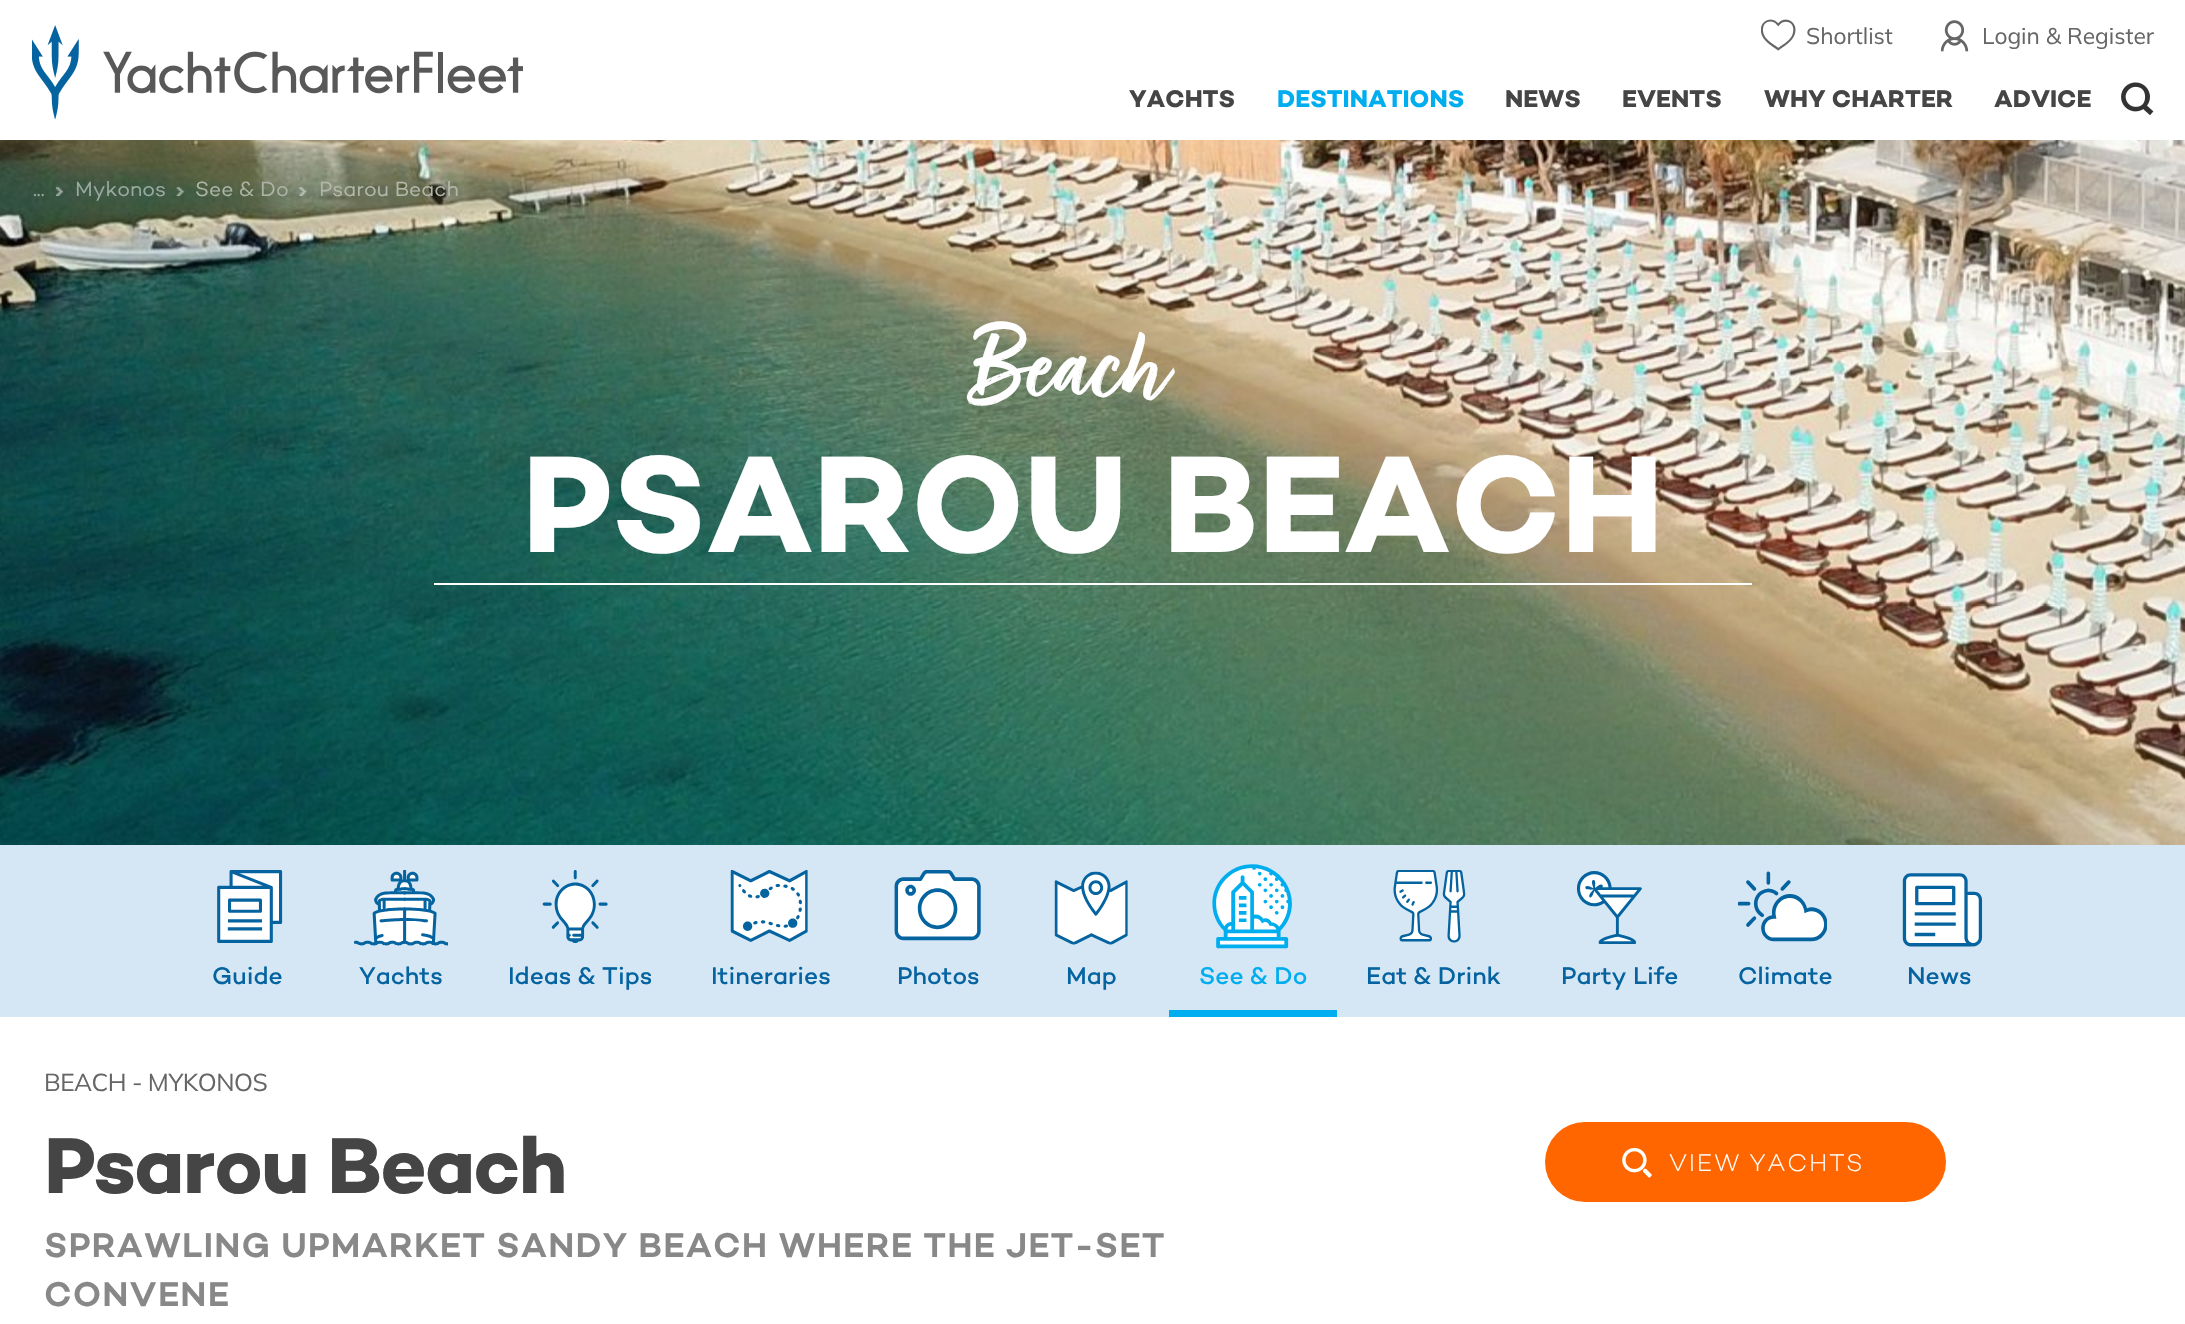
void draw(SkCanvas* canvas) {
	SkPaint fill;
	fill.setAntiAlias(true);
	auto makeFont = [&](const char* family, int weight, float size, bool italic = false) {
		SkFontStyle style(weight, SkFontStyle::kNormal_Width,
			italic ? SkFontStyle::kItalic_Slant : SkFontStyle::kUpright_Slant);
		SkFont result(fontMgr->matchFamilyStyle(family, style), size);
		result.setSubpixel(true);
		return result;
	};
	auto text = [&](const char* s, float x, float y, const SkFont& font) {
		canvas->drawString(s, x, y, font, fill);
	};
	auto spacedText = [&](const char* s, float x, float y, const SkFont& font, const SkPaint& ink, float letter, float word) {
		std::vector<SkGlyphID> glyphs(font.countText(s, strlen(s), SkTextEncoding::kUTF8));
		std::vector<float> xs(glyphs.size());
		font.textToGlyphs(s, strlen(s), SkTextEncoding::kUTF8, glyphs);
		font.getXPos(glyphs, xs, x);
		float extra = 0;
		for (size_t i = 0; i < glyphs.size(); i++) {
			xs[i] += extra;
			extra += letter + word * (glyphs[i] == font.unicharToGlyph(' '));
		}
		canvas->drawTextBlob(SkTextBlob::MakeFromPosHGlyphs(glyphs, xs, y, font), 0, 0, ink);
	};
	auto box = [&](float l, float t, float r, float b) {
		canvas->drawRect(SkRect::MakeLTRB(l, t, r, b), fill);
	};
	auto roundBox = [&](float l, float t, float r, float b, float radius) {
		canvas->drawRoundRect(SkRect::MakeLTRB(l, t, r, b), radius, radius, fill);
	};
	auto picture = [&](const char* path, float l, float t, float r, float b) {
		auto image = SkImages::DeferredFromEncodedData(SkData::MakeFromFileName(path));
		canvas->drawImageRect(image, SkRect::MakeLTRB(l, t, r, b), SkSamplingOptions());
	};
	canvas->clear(0xFFFFFFFF);
	picture("image0.png", 32, 25, 523, 119);
	picture("image1.png", 1761, 19, 1796, 51);
	picture("image2.png", 1941, 20, 1969, 52);
	picture("image3.png", 2121, 82, 2154, 116);
	picture("image7.png", 0, 140, 2185, 845);
	picture("image4.png", 56, 186, 63, 196);
	picture("image5.png", 176, 186, 184, 196);
	picture("image6.png", 299, 187, 307, 196);
	fill.setColor(0xFFFFFFFF);
	box(434, 583, 1752, 585);
	fill.setColor(0xFFD5E6F5);
	box(0, 845, 2185, 1017);
	picture("image8.png", 217, 870, 283, 943);
	picture("image9.png", 354, 870, 448, 946);
	picture("image10.png", 542, 870, 608, 943);
	picture("image11.png", 730, 870, 808, 942);
	picture("image12.png", 894, 870, 981, 941);
	picture("image13.png", 1054, 871, 1128, 945);
	picture("image14.png", 1212, 864, 1292, 949);
	fill.setColor(0xFF00ADEF);
	box(1169, 1010, 1337, 1017);
	picture("image15.png", 1393, 870, 1466, 943);
	picture("image16.png", 1576, 871, 1642, 944);
	picture("image17.png", 1738, 871, 1827, 942);
	picture("image18.png", 1902, 873, 1983, 947);
	fill.setColor(0xFFFF6600);
	roundBox(1545, 1122, 1946, 1202, 40);
	picture("image19.png", 1622, 1148, 1652, 1178);
	auto font1 = makeFont("Mulish", 400, 22.75f);
	fill.setColor(0xFF666666);
	text("Shortlist", 1806, 44, font1);
	text("Login & Register", 1982, 44, font1);
	auto font2 = makeFont("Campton", 700, 24.5f);
	fill.setColor(0xFF454545);
	text("YACHTS", 1129, 107, font2);
	fill.setColor(0xFF00ADEF);
	text("DESTINATIONS", 1277, 107, font2);
	fill.setColor(0xFF454545);
	text("NEWS", 1505, 107, font2);
	text("EVENTS", 1622, 107, font2);
	text("WHY CHARTER", 1764, 107, font2);
	text("ADVICE", 1994, 107, font2);
	auto font3 = makeFont("Campton", 400, 21);
	fill.setColor(0xFF9BAAA1);
	text("...", 33, 196, font3);
	text("Mykonos", 75, 196, font3);
	fill.setColor(0xFFACB4A6);
	text("See & Do", 195, 196, font3);
	fill.setColor(0xFFB3B6AA);
	text("Psarou Beach", 319, 196, font3);
	auto font4 = makeFont("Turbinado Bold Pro", 700, 110);
	fill.setColor(0xFFFFFFFF);
	text("Beach", 970, 405, font4);
	auto font5 = makeFont("Campton", 700, 140);
	text("PSAROU BEACH", 522, 552, font5);
	auto font6 = makeFont("Campton", 500, 24.5f);
	fill.setColor(0xFF0564A0);
	text("Guide", 212, 984, font6);
	text("Yachts", 359, 984, font6);
	text("Ideas & Tips", 508, 984, font6);
	text("Itineraries", 711, 984, font6);
	text("Photos", 897, 984, font6);
	text("Map", 1066, 984, font6);
	fill.setColor(0xFF00ADEF);
	text("See & Do", 1199, 984, font6);
	fill.setColor(0xFF0564A0);
	text("Eat & Drink", 1366, 984, font6);
	text("Party Life", 1561, 984, font6);
	text("Climate", 1738, 984, font6);
	text("News", 1907, 984, font6);
	auto font7 = makeFont("Mulish", 400, 24.5f);
	fill.setColor(0xFF666666);
	spacedText("BEACH - MYKONOS", 44, 1091, font7, fill, -0.5f, 0);
	auto font8 = makeFont("Campton", 700, 80.5f);
	fill.setColor(0xFF454545);
	spacedText("Psarou Beach", 44, 1193, font8, fill, -1.6f, 0);
	auto font9 = makeFont("Campton", 600, 35);
	fill.setColor(0xFF888888);
	spacedText("SPRAWLING UPMARKET SANDY BEACH WHERE THE JET-SET", 44, 1257, font9, fill, 1.05f, 0);
	spacedText("CONVENE", 44, 1306, font9, fill, 1.05f, 0);
	auto font10 = makeFont("Campton", 300, 24.5f);
	fill.setColor(0xFFFFFFFF);
	spacedText("VIEW YACHTS", 1669, 1171, font10, fill, 1.75f, 0);
}
